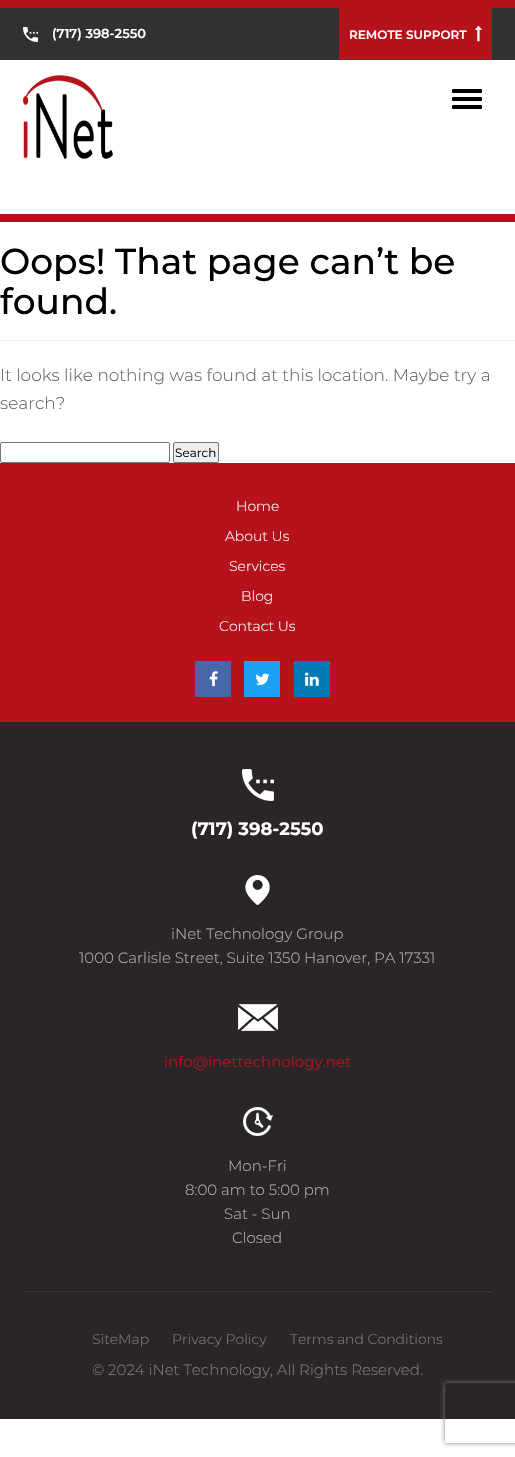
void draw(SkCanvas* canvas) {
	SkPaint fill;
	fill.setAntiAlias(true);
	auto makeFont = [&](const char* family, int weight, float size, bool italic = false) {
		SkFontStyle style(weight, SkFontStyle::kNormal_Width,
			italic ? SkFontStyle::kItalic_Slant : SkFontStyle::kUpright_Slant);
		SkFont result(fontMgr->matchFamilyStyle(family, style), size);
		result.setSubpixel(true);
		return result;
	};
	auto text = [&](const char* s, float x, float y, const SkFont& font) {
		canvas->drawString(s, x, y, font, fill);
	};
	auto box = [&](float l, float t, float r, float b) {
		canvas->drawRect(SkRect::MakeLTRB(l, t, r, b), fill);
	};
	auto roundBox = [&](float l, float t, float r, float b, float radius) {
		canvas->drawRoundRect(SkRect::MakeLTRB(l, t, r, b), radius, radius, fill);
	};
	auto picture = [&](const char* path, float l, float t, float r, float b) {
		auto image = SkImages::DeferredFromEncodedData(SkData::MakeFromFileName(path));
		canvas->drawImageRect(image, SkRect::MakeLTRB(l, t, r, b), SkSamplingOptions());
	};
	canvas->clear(0xFFFFFFFF);
	fill.setColor(0xFFB5121B);
	box(0, 0, 515, 8);
	fill.setColor(0xFF313131);
	box(0, 8, 515, 60);
	picture("image0.png", 23, 27, 38, 42);
	fill.setColor(0xFFB5121B);
	box(339, 8, 492, 60);
	picture("image1.png", 475, 25, 482, 42);
	picture("image2.png", 23, 75, 113, 159);
	fill.setColor(0xFF000000);
	roundBox(452, 89, 482, 93, 1);
	roundBox(452, 97, 482, 101, 1);
	roundBox(452, 105, 482, 109, 1);
	fill.setColor(0xFFB5121B);
	box(0, 214, 515, 222);
	fill.setColor(0xFFEEEEEE);
	box(0, 340, 515, 341);
	fill.setStyle(SkPaint::kStroke_Style);
	fill.setStrokeWidth(1);
	fill.setColor(0xFF767676);
	canvas->drawRoundRect(SkRect::MakeLTRB(0.5f, 442.5f, 169.5f, 462.5f), 1.5f, 1.5f, fill);
	fill.setStyle(SkPaint::kFill_Style);
	fill.setColor(0xFFEFEFEF);
	canvas->drawRoundRect(SkRect::MakeLTRB(173.5f, 442.5f, 218.5f, 462.5f), 1.5f, 1.5f, fill);
	fill.setStyle(SkPaint::kStroke_Style);
	fill.setColor(0xFF767676);
	canvas->drawRoundRect(SkRect::MakeLTRB(173.5f, 442.5f, 218.5f, 462.5f), 1.5f, 1.5f, fill);
	fill.setStyle(SkPaint::kFill_Style);
	fill.setColor(0xFFB5121B);
	box(0, 463, 515, 722);
	fill.setColor(0xFF4867AA);
	box(195, 661, 231, 697);
	picture("image3.png", 209, 671, 218, 687);
	fill.setColor(0xFF1DA1F2);
	box(244, 661, 280, 697);
	picture("image4.png", 255, 673, 270, 685);
	fill.setColor(0xFF007BB6);
	box(294, 661, 330, 697);
	picture("image5.png", 305, 672, 319, 686);
	fill.setColor(0xFF292528);
	box(0, 722, 515, 1419);
	picture("image6.png", 242, 769, 274, 801);
	picture("image7.png", 245, 875, 270, 905);
	picture("image8.png", 238, 1004, 278, 1031);
	picture("image9.png", 243, 1107, 273, 1136);
	fill.setColor(0xFF201C1F);
	box(23, 1290, 492, 1291);
	fill.setColor(0xFF3B383A);
	box(23, 1291, 492, 1292);
	canvas->save();
	canvas->clipPath(SkPathBuilder(SkPathFillType::kEvenOdd).moveTo(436, 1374).lineTo(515, 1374).lineTo(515, 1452).lineTo(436, 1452).close().moveTo(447, 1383).lineTo(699, 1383).cubicTo(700, 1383, 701, 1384, 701, 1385).lineTo(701, 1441).cubicTo(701, 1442, 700, 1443, 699, 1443).lineTo(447, 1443).cubicTo(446, 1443, 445, 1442, 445, 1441).lineTo(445, 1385).cubicTo(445, 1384, 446, 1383, 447, 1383).close().detach(), true);
	fill.setColor(0xFF808080);
	fill.setMaskFilter(SkMaskFilter::MakeBlur(kNormal_SkBlurStyle, 2.5f));
	canvas->drawRoundRect(SkRect::MakeLTRB(445, 1383, 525, 1443), 2, 2, fill);
	fill.setMaskFilter(nullptr);
	canvas->restore();
	auto font1 = makeFont("Montserrat", 600, 13);
	fill.setColor(0xFFFFFFFF);
	text("(717) 398-2550", 52, 38, font1);
	auto font2 = makeFont("Montserrat", 600, 12);
	text("REMOTE SUPPORT", 349, 39, font2);
	auto font3 = makeFont("Montserrat", 500, 36);
	fill.setColor(0xFF000000);
	text("Oops! That page can’t be", 0, 274, font3);
	text("found.", 0, 314, font3);
	auto font4 = makeFont("Montserrat", 300, 17);
	fill.setColor(0xFF636363);
	text("It looks like nothing was found at this location. Maybe try a", 0, 381, font4);
	text("search?", 0, 409, font4);
	auto font5 = makeFont("Montserrat", 400, 12);
	fill.setColor(0xFF000000);
	text("Search", 175, 457, font5);
	auto font6 = makeFont("Montserrat", 300, 14);
	fill.setColor(0xFFFFFFFF);
	text("Home", 236, 511, font6);
	text("About Us", 225, 541, font6);
	text("Services", 229, 571, font6);
	text("Blog", 241, 601, font6);
	text("Contact Us", 219, 631, font6);
	auto font7 = makeFont("Montserrat", 700, 18);
	text("(717) 398-2550", 191, 835, font7);
	auto font8 = makeFont("Montserrat", 300, 15);
	fill.setColor(0xFFB4B3B4);
	text("iNet Technology Group", 171, 939, font8);
	text("1000 Carlisle Street, Suite 1350 Hanover, PA 17331", 79, 963, font8);
	auto font9 = makeFont("Montserrat", 400, 15);
	fill.setColor(0xFFB5121B);
	text("info@inettechnology.net", 164, 1067, font9);
	fill.setColor(0xFFB4B3B4);
	text("Mon-Fri", 228, 1171, font8);
	text("8:00 am to 5:00 pm", 185, 1195, font8);
	text("Sat - Sun", 224, 1219, font8);
	text("Closed", 232, 1243, font8);
	fill.setColor(0xFF817C80);
	text("SiteMap", 92, 1344, font6);
	text("Privacy Policy", 172, 1344, font6);
	text("Terms and Conditions", 290, 1344, font6);
	text("© 2024 iNet Technology, All Rights Reserved.", 92, 1375, font8);
}
